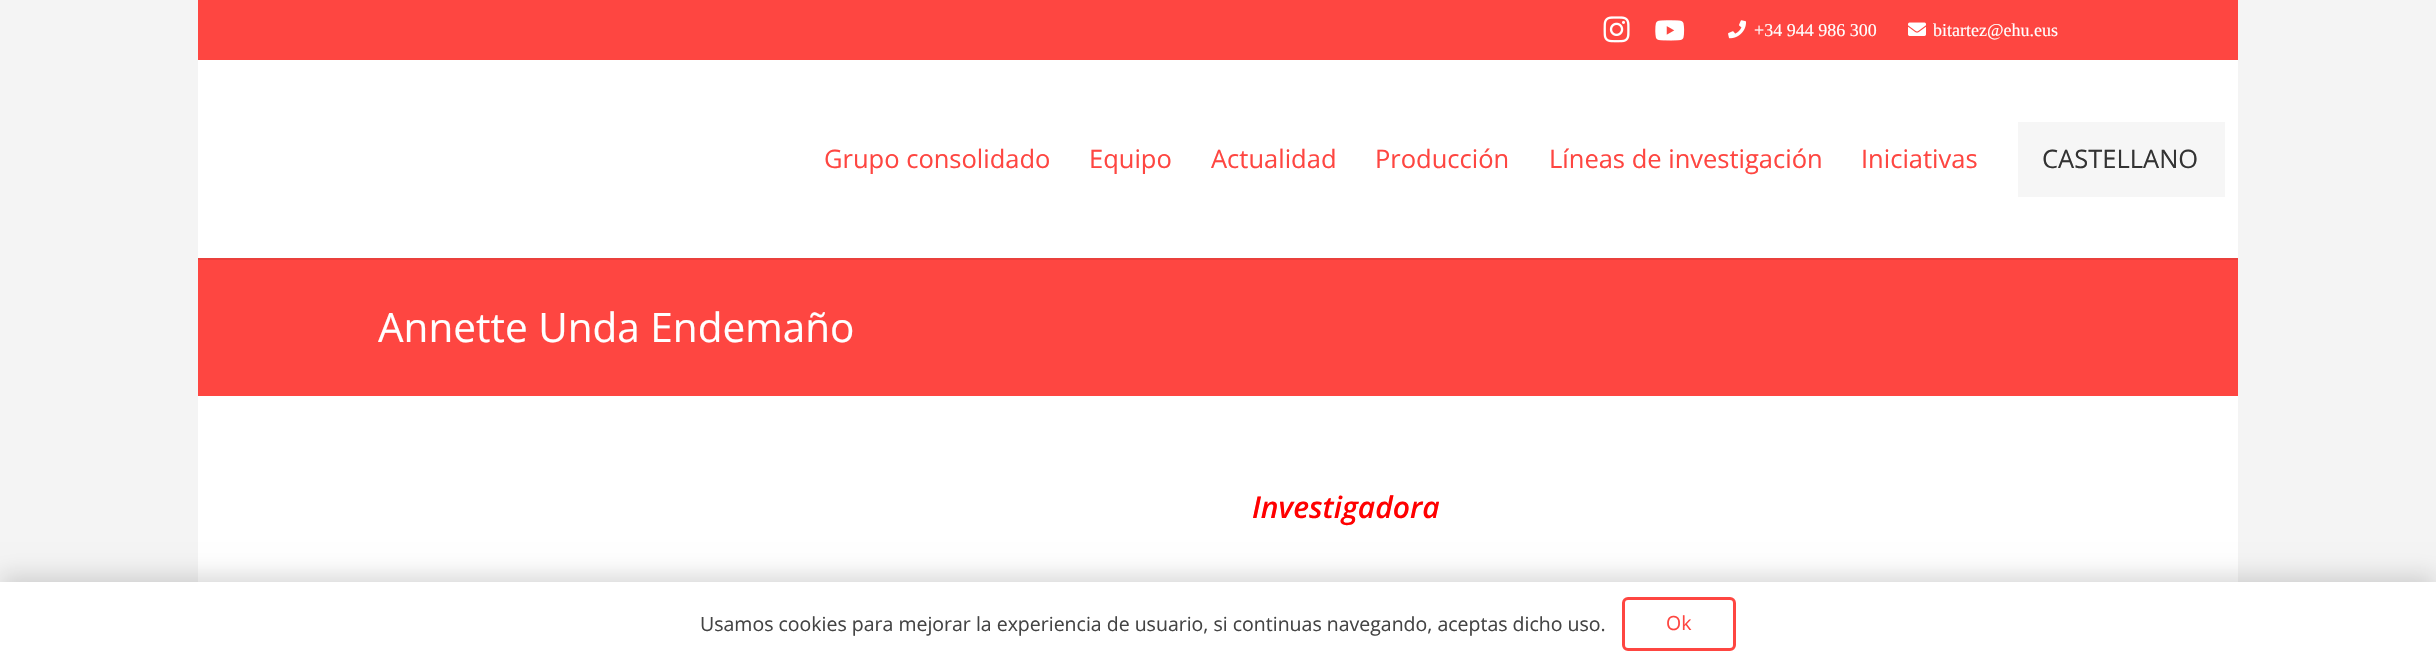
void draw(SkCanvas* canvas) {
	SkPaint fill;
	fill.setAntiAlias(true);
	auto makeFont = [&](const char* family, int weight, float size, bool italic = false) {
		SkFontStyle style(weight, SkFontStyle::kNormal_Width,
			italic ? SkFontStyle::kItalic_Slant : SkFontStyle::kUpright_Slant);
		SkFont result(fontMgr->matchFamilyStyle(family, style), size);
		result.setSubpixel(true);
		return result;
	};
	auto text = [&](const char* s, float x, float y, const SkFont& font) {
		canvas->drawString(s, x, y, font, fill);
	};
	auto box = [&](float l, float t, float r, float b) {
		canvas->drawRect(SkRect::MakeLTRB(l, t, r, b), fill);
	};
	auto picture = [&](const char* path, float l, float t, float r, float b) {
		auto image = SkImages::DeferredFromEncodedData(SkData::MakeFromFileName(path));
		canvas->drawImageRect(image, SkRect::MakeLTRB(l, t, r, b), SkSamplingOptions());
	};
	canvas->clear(0xFFF4F4F4);
	fill.setColor(0xFFFFFFFF);
	box(198, 396, 2238, 582);
	fill.setColor(0xFFFE4641);
	box(198, 0, 2238, 396);
	picture("image0.png", 1603, 16, 1630, 43);
	picture("image1.png", 1655, 20, 1685, 41);
	picture("image2.png", 1728, 20, 1746, 39);
	picture("image3.png", 1908, 22, 1926, 36);
	fill.setColor(0xFFEA403C);
	box(198, 258, 2238, 260);
	fill.setColor(0xFFFFFFFF);
	box(198, 60, 2238, 258);
	fill.setColor(0xFFF6F6F6);
	box(2018, 122, 2225, 197);
	fill.setColor(0x26000000);
	fill.setMaskFilter(SkMaskFilter::MakeBlur(kNormal_SkBlurStyle, 11));
	canvas->drawRect(SkRect::MakeLTRB(0, 575, 2436, 659), fill);
	fill.setMaskFilter(nullptr);
	fill.setColor(0xFFFFFFFF);
	box(0, 582, 2436, 665);
	fill.setStyle(SkPaint::kStroke_Style);
	fill.setStrokeWidth(3);
	fill.setColor(0xFFFE4641);
	canvas->drawRoundRect(SkRect::MakeLTRB(1623.5f, 598.5f, 1734.5f, 649.5f), 4.5f, 4.5f, fill);
	auto font1 = makeFont("Liberation Serif", 400, 18);
	fill.setStyle(SkPaint::kFill_Style);
	fill.setColor(0xFFFFFFFF);
	text("+34 944 986 300", 1754, 36, font1);
	text("bitartez@ehu.eus", 1933, 36, font1);
	auto font2 = makeFont("Open Sans", 400, 25.5f);
	fill.setColor(0xFFFE4641);
	text("Grupo consolidado", 824, 168, font2);
	text("Equipo", 1089, 168, font2);
	text("Actualidad", 1211, 168, font2);
	text("Producción", 1375, 168, font2);
	text("Líneas de investigación", 1549, 168, font2);
	text("Iniciativas", 1861, 168, font2);
	fill.setColor(0xFF333333);
	text("CASTELLANO", 2042, 168, font2);
	auto font3 = makeFont("Open Sans", 400, 40.5f);
	fill.setColor(0xFFFFFFFF);
	text("Annette Unda Endemaño", 378, 342, font3);
	auto font4 = makeFont("Open Sans", 600, 30, true);
	fill.setColor(0xFFFF0000);
	text("Investigadora", 1252, 518, font4);
	auto font5 = makeFont("Open Sans", 400, 19.5f);
	fill.setColor(0xFF444444);
	text("Usamos cookies para mejorar la experiencia de usuario, si continuas navegando, aceptas dicho uso.", 700, 631, font5);
	fill.setColor(0xFFFE4641);
	text("Ok", 1666, 630, font5);
}
